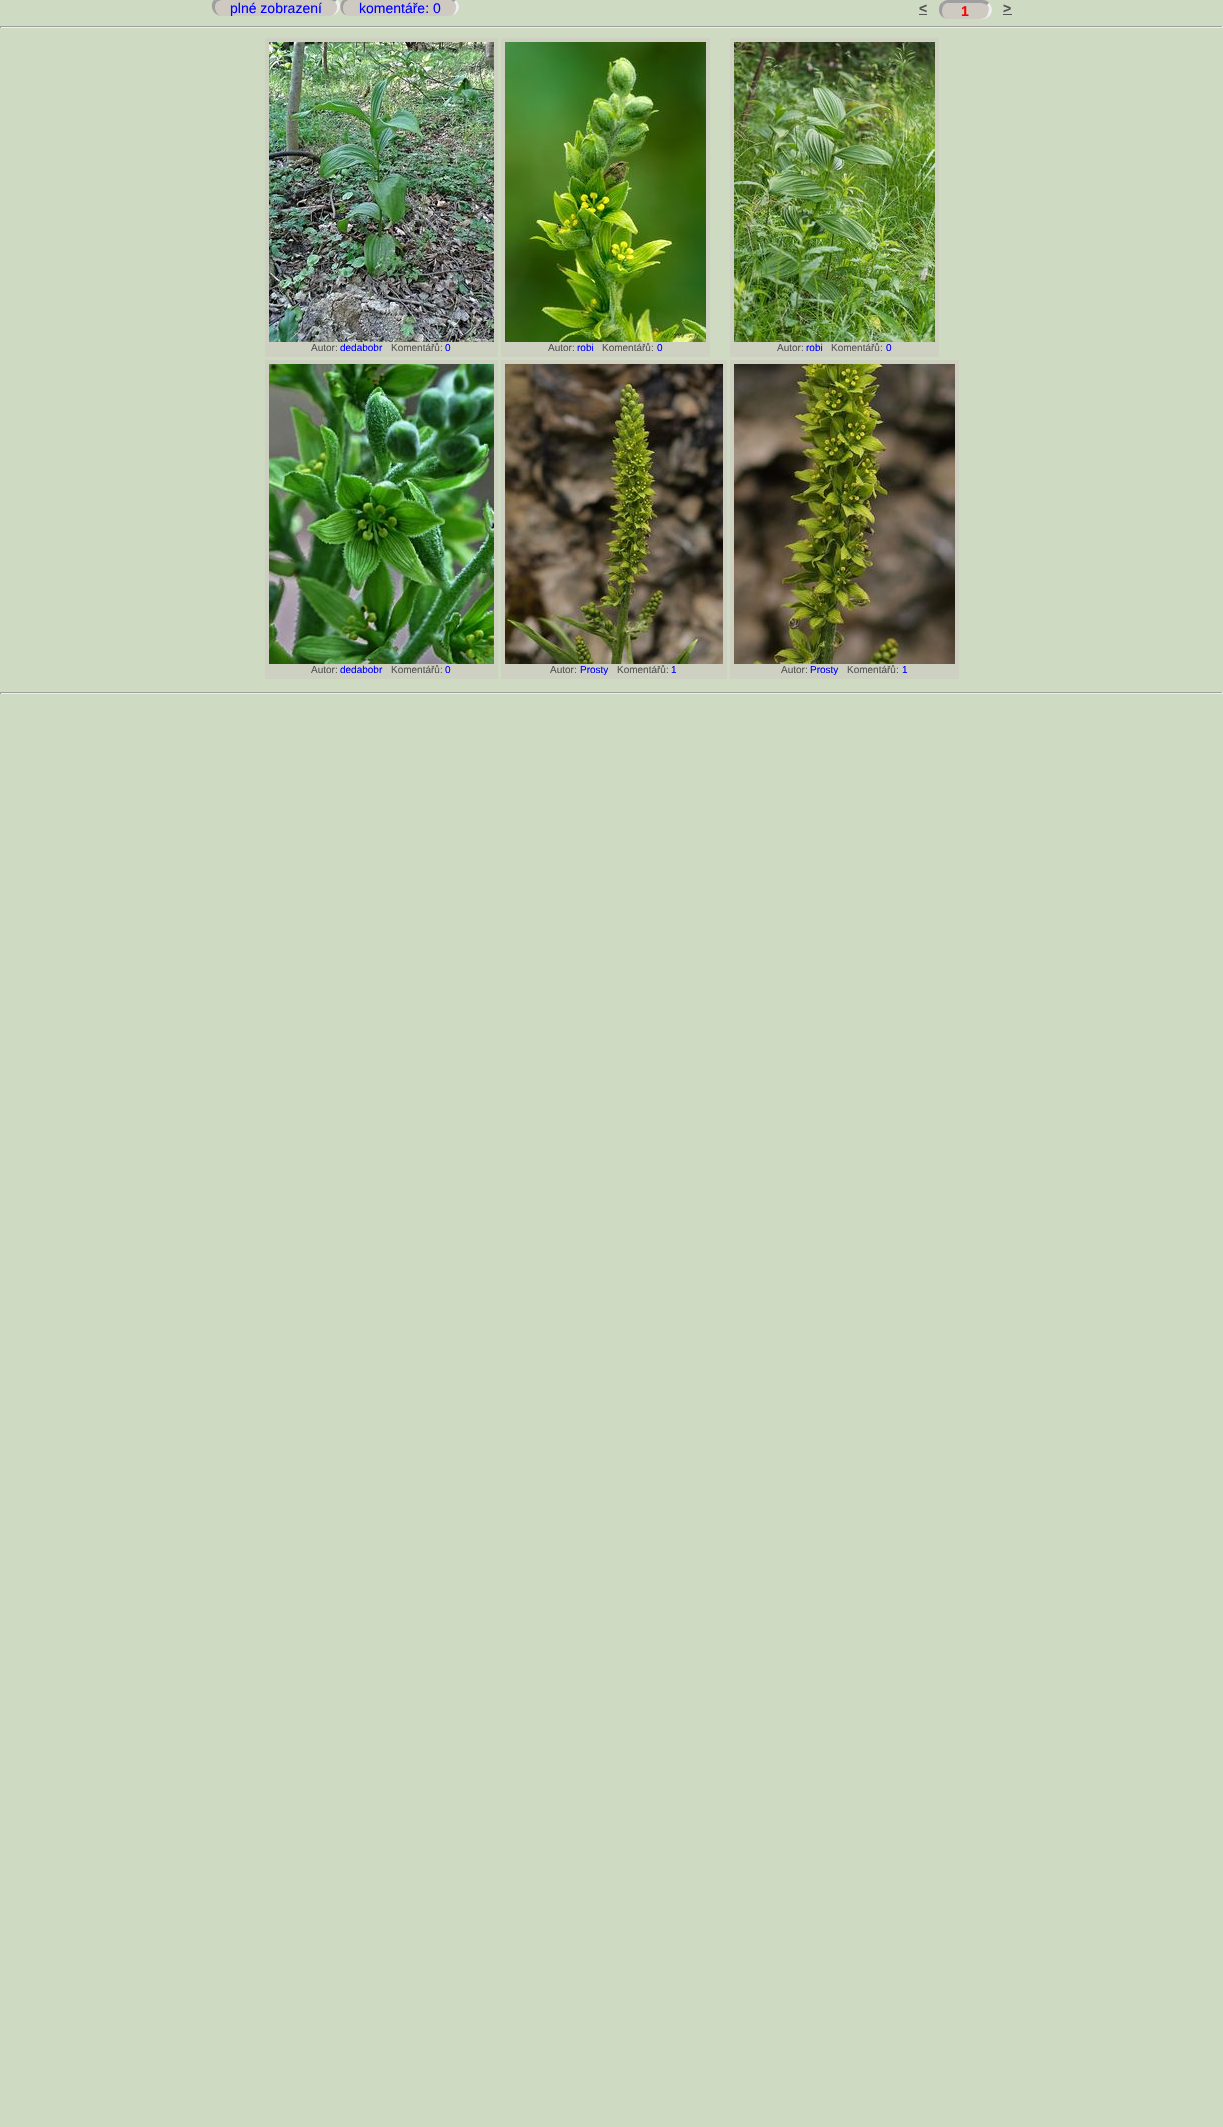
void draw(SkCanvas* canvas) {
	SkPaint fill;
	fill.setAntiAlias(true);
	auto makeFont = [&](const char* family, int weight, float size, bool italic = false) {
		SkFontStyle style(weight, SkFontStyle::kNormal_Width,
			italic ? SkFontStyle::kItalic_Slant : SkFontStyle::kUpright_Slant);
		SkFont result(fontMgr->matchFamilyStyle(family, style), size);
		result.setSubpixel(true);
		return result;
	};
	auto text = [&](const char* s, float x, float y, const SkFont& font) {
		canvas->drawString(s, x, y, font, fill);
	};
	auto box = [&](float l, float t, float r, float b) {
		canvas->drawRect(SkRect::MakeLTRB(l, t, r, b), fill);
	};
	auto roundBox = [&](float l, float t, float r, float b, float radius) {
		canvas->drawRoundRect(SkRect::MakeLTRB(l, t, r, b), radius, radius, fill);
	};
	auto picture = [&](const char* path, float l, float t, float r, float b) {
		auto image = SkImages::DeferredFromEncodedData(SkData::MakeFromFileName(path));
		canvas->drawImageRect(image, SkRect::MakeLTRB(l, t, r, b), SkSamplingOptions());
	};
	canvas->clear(0xFFCEDAC2);
	fill.setColor(0xFFCECAC2);
	roundBox(212, -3, 340, 16, 9.5f);
	fill.setColor(0xFF9F9F9F);
	canvas->drawPath(SkPathBuilder().moveTo(222, -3).cubicTo(219, -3, 216, -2, 215, 0).lineTo(217, 2).cubicTo(218, 1, 220, 0, 222, 0).lineTo(330, 0).cubicTo(332, 0, 334, 1, 335, 2).lineTo(337, 0).cubicTo(336, -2, 333, -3, 330, -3).close().detach(), fill);
	fill.setColor(0xFFEEEEEE);
	canvas->drawPath(SkPathBuilder().moveTo(337.5f, -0.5f).cubicTo(343.5f, 5.5f, 338.5f, 16, 330, 16).cubicTo(336, 16, 339.5f, 6, 335, 2).close().detach(), fill);
	fill.setColor(0xFF9F9F9F);
	canvas->drawPath(SkPathBuilder().moveTo(217, 2).cubicTo(212.5f, 6, 216, 16, 222, 16).cubicTo(213.5f, 16, 208.5f, 5.5f, 214.5f, -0.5f).close().detach(), fill);
	fill.setColor(0xFFCECAC2);
	roundBox(340, -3, 459, 16, 9.5f);
	fill.setColor(0xFF9F9F9F);
	canvas->drawPath(SkPathBuilder().moveTo(350, -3).lineTo(451, -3).cubicTo(453, -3, 455, -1, 456, 0).lineTo(454, 2).lineTo(451, 0).lineTo(348, 0).lineTo(345, 2).lineTo(343, 0).cubicTo(345, -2, 347, -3, 350, -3).close().detach(), fill);
	fill.setColor(0xFFEEEEEE);
	canvas->drawPath(SkPathBuilder().moveTo(456, 0).lineTo(454, 2).cubicTo(457.5f, 5, 456, 12, 453, 14.5f).cubicTo(451.5f, 15.5f, 449.5f, 16, 448, 16).cubicTo(453.5f, 16, 459.5f, 12.5f, 459, 6).cubicTo(458.5f, 4, 457.5f, 1.5f, 456, 0).close().detach(), fill);
	fill.setColor(0xFF9F9F9F);
	canvas->drawPath(SkPathBuilder().moveTo(345, 2).cubicTo(341.5f, 6, 342.5f, 14.5f, 348, 16).cubicTo(340, 14.5f, 338.5f, 5, 343, 0).close().detach(), fill);
	fill.setColor(0xFF555555);
	box(919, 14, 927, 15);
	fill.setColor(0xFFCECAC2);
	roundBox(939, 0, 992, 19, 9.5f);
	fill.setColor(0xFF9F9F9F);
	canvas->drawPath(SkPathBuilder().moveTo(948, 0).cubicTo(946, 0, 943, 1, 942, 3).lineTo(944, 5).cubicTo(945, 4, 946, 3, 947, 3).lineTo(981, 3).cubicTo(983, 3, 985, 4, 987, 5).lineTo(989, 3).cubicTo(988, 1, 985, 0, 982, 0).close().detach(), fill);
	fill.setColor(0xFFEEEEEE);
	canvas->drawPath(SkPathBuilder().moveTo(977, 19).cubicTo(980, 19, 983.5f, 19.5f, 986, 18.5f).cubicTo(992.5f, 16, 994, 7.5f, 989, 3).lineTo(987, 5).cubicTo(989, 6.5f, 989.5f, 9, 988, 13).cubicTo(987, 19, 982, 19, 977, 19).close().detach(), fill);
	fill.setColor(0xFF9F9F9F);
	canvas->drawPath(SkPathBuilder().moveTo(947, 19).lineTo(948, 19).cubicTo(941.5f, 19, 940.5f, 9, 944, 5).lineTo(941.5f, 2.5f).cubicTo(938, 6.5f, 938, 13.5f, 942.5f, 17).cubicTo(944, 18, 945.5f, 18.5f, 947, 19).close().detach(), fill);
	fill.setColor(0xFF555555);
	box(1003, 14, 1012, 15);
	fill.setColor(0xFF9F9F9F);
	box(0, 26, 1223, 27);
	fill.setColor(0xFFEEEEEE);
	box(1222, 26, 1223, 28);
	box(0, 27, 1223, 28);
	fill.setColor(0xFF9F9F9F);
	box(0, 26, 1, 28);
	fill.setColor(0xFFCED1C2);
	box(265, 38, 498, 357);
	picture("image0.png", 269, 42, 494, 342);
	box(501, 38, 710, 357);
	picture("image1.png", 505, 42, 706, 342);
	box(730, 38, 939, 357);
	picture("image2.png", 734, 42, 935, 342);
	box(265, 360, 498, 679);
	picture("image3.png", 269, 364, 494, 664);
	box(501, 360, 727, 679);
	picture("image4.png", 505, 364, 723, 664);
	box(730, 360, 959, 679);
	picture("image5.png", 734, 364, 955, 664);
	fill.setColor(0xFF9F9F9F);
	box(0, 692, 1223, 693);
	fill.setColor(0xFFEEEEEE);
	box(1222, 692, 1223, 694);
	box(0, 693, 1223, 694);
	fill.setColor(0xFF9F9F9F);
	box(0, 692, 1, 694);
	auto font1 = makeFont("Liberation Sans", 400, 14);
	fill.setColor(0xFF0000FF);
	text("plné zobrazení", 230, 13, font1);
	text("komentáře: 0", 359, 13, font1);
	auto font2 = makeFont("Liberation Sans", 700, 14);
	fill.setColor(0xFF555555);
	text("<", 919, 13, font2);
	fill.setColor(0xFFFF0000);
	text("1", 961, 16, font2);
	fill.setColor(0xFF555555);
	text(">", 1003, 13, font2);
	auto font3 = makeFont("Liberation Sans", 400, 10);
	text("Autor:", 311, 351, font3);
	fill.setColor(0xFF0000FF);
	text("dedabobr", 340, 351, font3);
	fill.setColor(0xFF555555);
	text("Komentářů:", 391, 351, font3);
	fill.setColor(0xFF0000FF);
	text("0", 445, 351, font3);
	fill.setColor(0xFF555555);
	text("Autor:", 548, 351, font3);
	fill.setColor(0xFF0000FF);
	text("robi", 577, 351, font3);
	fill.setColor(0xFF555555);
	text("Komentářů:", 602, 351, font3);
	fill.setColor(0xFF0000FF);
	text("0", 657, 351, font3);
	fill.setColor(0xFF555555);
	text("Autor:", 777, 351, font3);
	fill.setColor(0xFF0000FF);
	text("robi", 806, 351, font3);
	fill.setColor(0xFF555555);
	text("Komentářů:", 831, 351, font3);
	fill.setColor(0xFF0000FF);
	text("0", 886, 351, font3);
	fill.setColor(0xFF555555);
	text("Autor:", 311, 673, font3);
	fill.setColor(0xFF0000FF);
	text("dedabobr", 340, 673, font3);
	fill.setColor(0xFF555555);
	text("Komentářů:", 391, 673, font3);
	fill.setColor(0xFF0000FF);
	text("0", 445, 673, font3);
	fill.setColor(0xFF555555);
	text("Autor:", 550, 673, font3);
	fill.setColor(0xFF0000FF);
	text("Prosty", 580, 673, font3);
	fill.setColor(0xFF555555);
	text("Komentářů:", 617, 673, font3);
	fill.setColor(0xFF0000FF);
	text("1", 671, 673, font3);
	fill.setColor(0xFF555555);
	text("Autor:", 781, 673, font3);
	fill.setColor(0xFF0000FF);
	text("Prosty", 810, 673, font3);
	fill.setColor(0xFF555555);
	text("Komentářů:", 847, 673, font3);
	fill.setColor(0xFF0000FF);
	text("1", 902, 673, font3);
}
